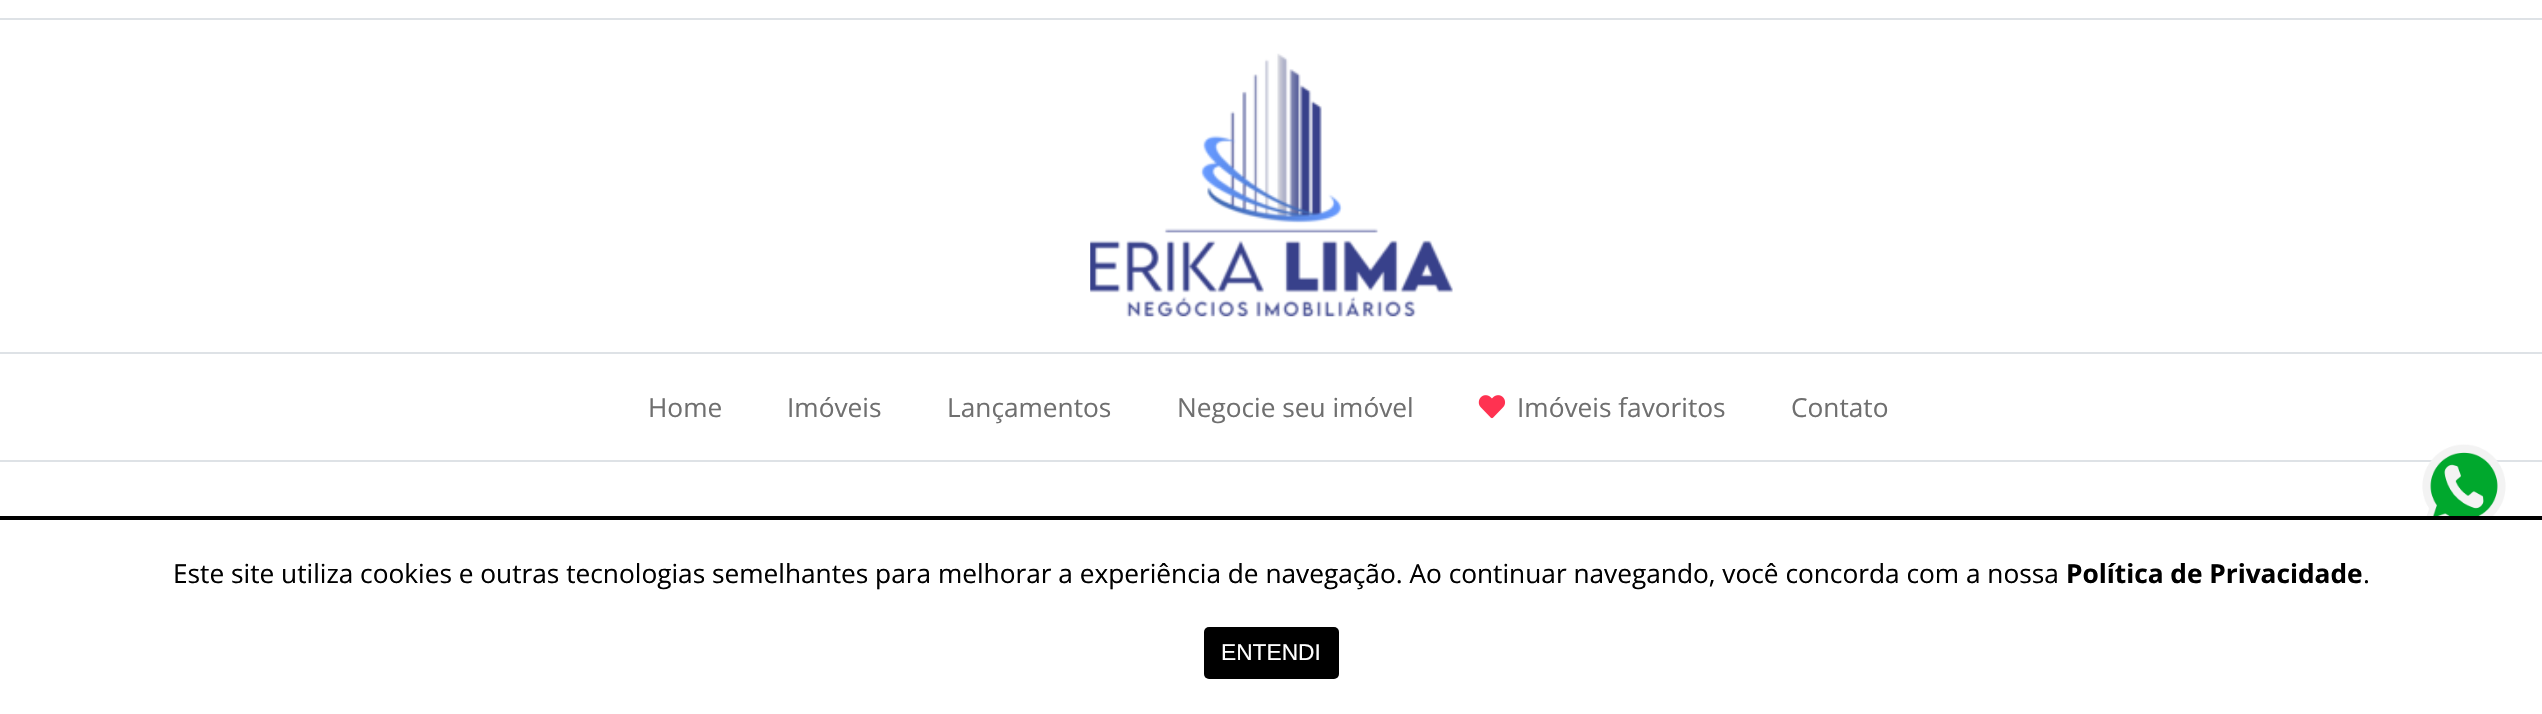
void draw(SkCanvas* canvas) {
	SkPaint fill;
	fill.setAntiAlias(true);
	auto makeFont = [&](const char* family, int weight, float size, bool italic = false) {
		SkFontStyle style(weight, SkFontStyle::kNormal_Width,
			italic ? SkFontStyle::kItalic_Slant : SkFontStyle::kUpright_Slant);
		SkFont result(fontMgr->matchFamilyStyle(family, style), size);
		result.setSubpixel(true);
		return result;
	};
	auto text = [&](const char* s, float x, float y, const SkFont& font) {
		canvas->drawString(s, x, y, font, fill);
	};
	auto box = [&](float l, float t, float r, float b) {
		canvas->drawRect(SkRect::MakeLTRB(l, t, r, b), fill);
	};
	auto roundBox = [&](float l, float t, float r, float b, float radius) {
		canvas->drawRoundRect(SkRect::MakeLTRB(l, t, r, b), radius, radius, fill);
	};
	auto picture = [&](const char* path, float l, float t, float r, float b) {
		auto image = SkImages::DeferredFromEncodedData(SkData::MakeFromFileName(path));
		canvas->drawImageRect(image, SkRect::MakeLTRB(l, t, r, b), SkSamplingOptions());
	};
	canvas->clear(0xFFFFFFFF);
	fill.setColor(0xFFDEE2E6);
	box(0, 18, 2542, 20);
	picture("image0.png", 1090, 53, 1453, 317);
	box(0, 352, 2542, 354);
	box(0, 460, 2542, 462);
	picture("image1.png", 1478, 395, 1506, 419);
	picture("image2.png", 2422, 444, 2506, 516);
	fill.setColor(0xFF000000);
	box(0, 516, 2542, 520);
	roundBox(1204, 627, 1339, 679, 5);
	auto font1 = makeFont("Open Sans", 400, 26.25f);
	fill.setColor(0xFF6F6F6F);
	text("Home", 648, 417, font1);
	text("Imóveis", 787, 417, font1);
	text("Lançamentos", 947, 417, font1);
	text("Negocie seu imóvel", 1177, 417, font1);
	text("Imóveis favoritos", 1517, 417, font1);
	text("Contato", 1791, 417, font1);
	fill.setColor(0xFF000000);
	text("Este site utiliza cookies e outras tecnologias semelhantes para melhorar a experiência de navegação. Ao continuar navegando, você concorda com a nossa", 173, 583, font1);
	auto font2 = makeFont("Open Sans", 700, 26.25f);
	text("Política de Privacidade", 2066, 583, font2);
	text(".", 2363, 583, font1);
	auto font3 = makeFont("Liberation Sans", 400, 22.75f);
	fill.setColor(0xFFFFFFFF);
	text("ENTENDI", 1221, 660, font3);
}
